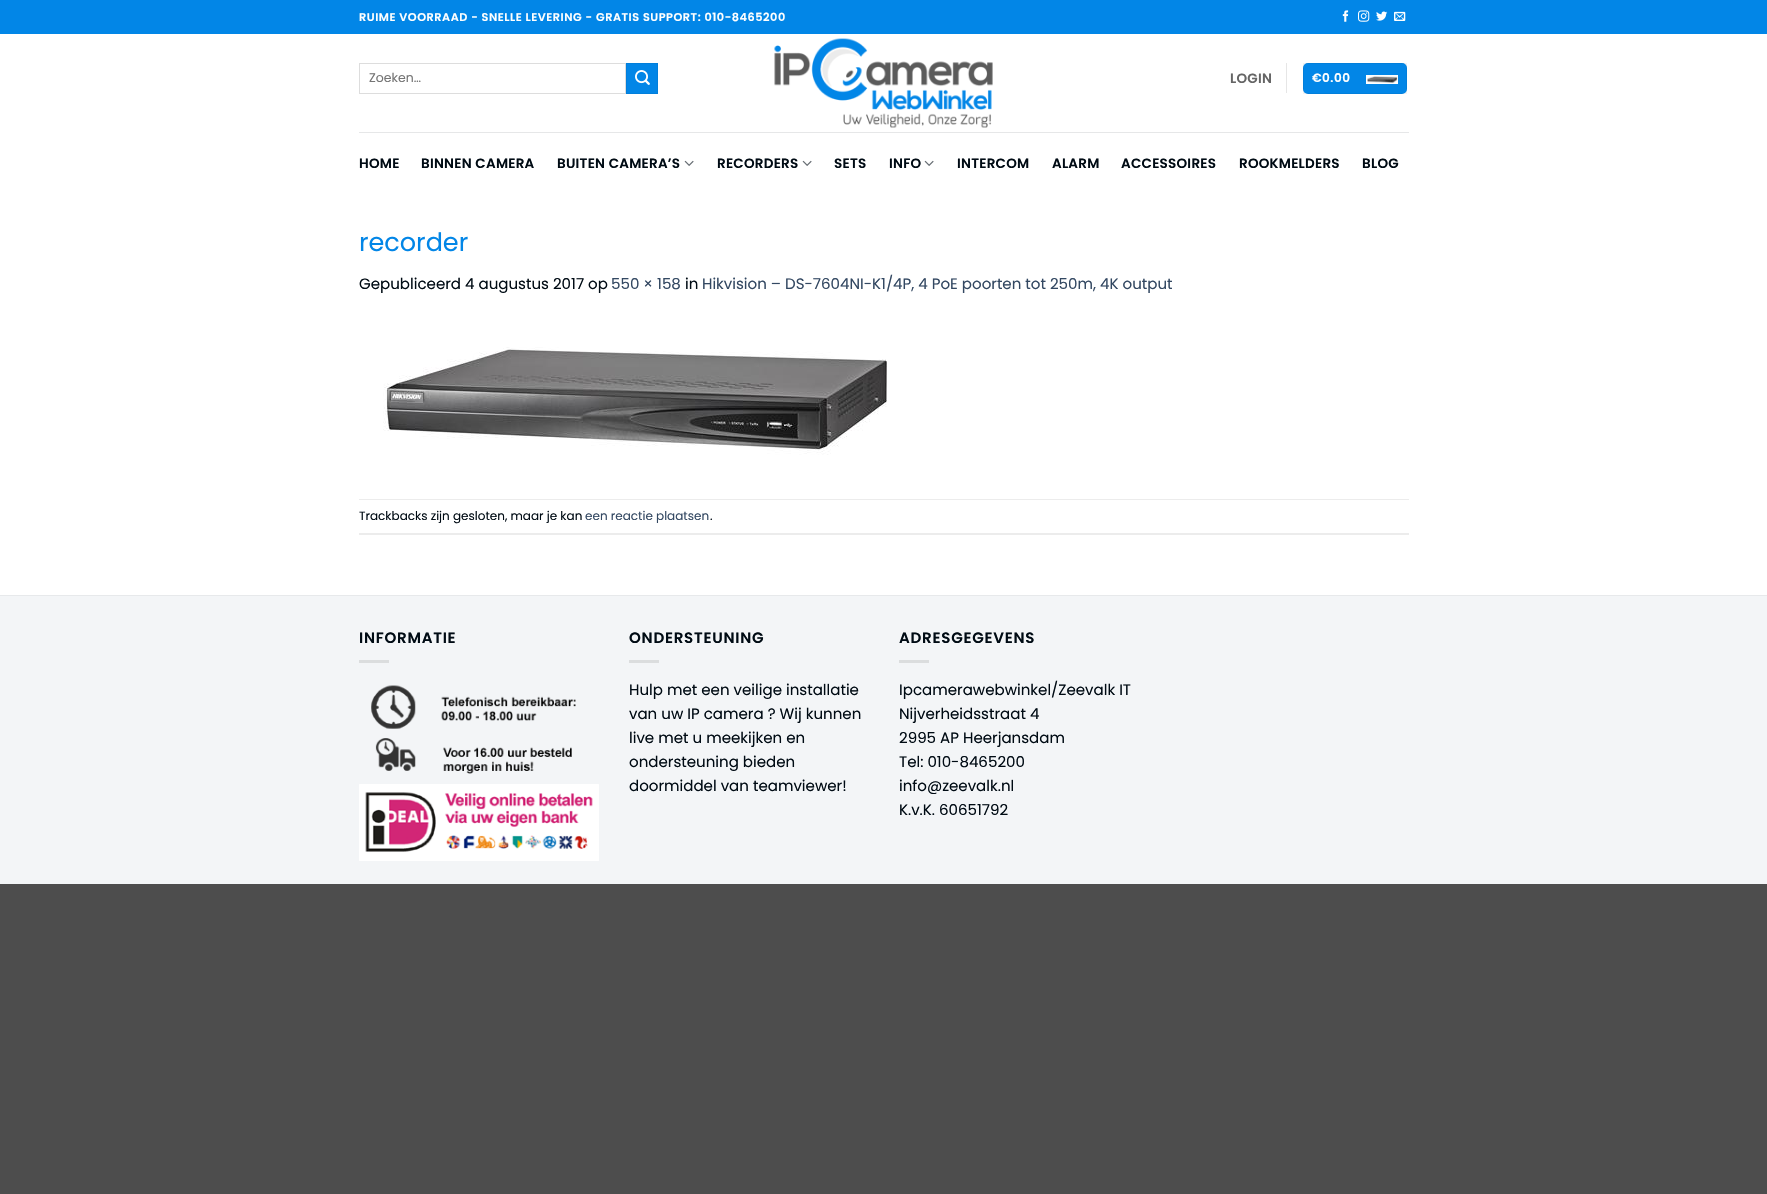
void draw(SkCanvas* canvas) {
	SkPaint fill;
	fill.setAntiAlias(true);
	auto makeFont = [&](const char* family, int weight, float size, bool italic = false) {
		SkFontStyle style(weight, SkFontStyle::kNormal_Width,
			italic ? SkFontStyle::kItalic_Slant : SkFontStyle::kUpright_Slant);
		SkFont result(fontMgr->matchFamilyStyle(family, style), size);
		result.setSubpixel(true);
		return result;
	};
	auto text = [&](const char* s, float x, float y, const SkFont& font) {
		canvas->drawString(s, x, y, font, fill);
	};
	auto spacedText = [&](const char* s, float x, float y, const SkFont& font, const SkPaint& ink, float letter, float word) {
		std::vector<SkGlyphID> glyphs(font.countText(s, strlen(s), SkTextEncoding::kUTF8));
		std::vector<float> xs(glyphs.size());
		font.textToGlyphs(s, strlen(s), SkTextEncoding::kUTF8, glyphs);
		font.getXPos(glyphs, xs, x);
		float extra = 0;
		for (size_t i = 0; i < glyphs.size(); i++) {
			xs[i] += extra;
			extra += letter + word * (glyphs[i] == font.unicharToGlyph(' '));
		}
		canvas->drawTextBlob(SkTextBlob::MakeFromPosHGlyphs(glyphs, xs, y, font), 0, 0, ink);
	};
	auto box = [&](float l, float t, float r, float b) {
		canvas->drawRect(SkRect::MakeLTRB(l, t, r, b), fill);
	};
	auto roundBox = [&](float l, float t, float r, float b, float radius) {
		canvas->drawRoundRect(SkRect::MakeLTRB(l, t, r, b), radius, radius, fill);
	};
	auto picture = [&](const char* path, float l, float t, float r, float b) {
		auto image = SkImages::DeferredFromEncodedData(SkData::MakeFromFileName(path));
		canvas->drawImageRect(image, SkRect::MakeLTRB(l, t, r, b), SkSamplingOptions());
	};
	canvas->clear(0xFF4D4D4D);
	fill.setColor(0xFFFFFFFF);
	box(0, 34, 1767, 595);
	fill.setColor(0xFF0286E7);
	box(0, 0, 1767, 34);
	picture("image0.png", 1342, 10, 1349, 22);
	picture("image1.png", 1358, 10, 1370, 22);
	picture("image2.png", 1376, 11, 1388, 21);
	picture("image3.png", 1394, 11, 1406, 21);
	fill.setStyle(SkPaint::kStroke_Style);
	fill.setStrokeWidth(1);
	fill.setColor(0xFFDDDDDD);
	canvas->drawRect(SkRect::MakeLTRB(359.5f, 63.5f, 625.5f, 93.5f), fill);
	fill.setStyle(SkPaint::kFill_Style);
	fill.setColor(0xFF0286E7);
	canvas->drawRect(SkRect::MakeLTRB(626.5f, 63.5f, 657.5f, 93.5f), fill);
	fill.setStyle(SkPaint::kStroke_Style);
	fill.setColor(0xFF027FDB);
	canvas->drawRect(SkRect::MakeLTRB(626.5f, 63.5f, 657.5f, 93.5f), fill);
	picture("image4.png", 635, 70, 650, 85);
	picture("image5.png", 774, 38, 993, 128);
	fill.setStyle(SkPaint::kFill_Style);
	fill.setColor(0xFFE6E6E6);
	box(1286, 63, 1287, 93);
	fill.setColor(0xFF0286E7);
	roundBox(1303, 63, 1407, 94, 5);
	fill.setStyle(SkPaint::kStroke_Style);
	fill.setColor(0x0D000000);
	canvas->drawRect(SkRect::MakeLTRB(1303.5f, 63.5f, 1406.5f, 93.5f), fill);
	picture("image6.png", 1366, 75, 1398, 84);
	fill.setStyle(SkPaint::kFill_Style);
	fill.setColor(0xFFE6E7E8);
	box(359, 132, 1409, 133);
	picture("image7.png", 684, 160, 694, 166);
	picture("image7.png", 802, 160, 812, 166);
	picture("image7.png", 924, 160, 934, 166);
	picture("image8.png", 383, 347, 887, 455);
	fill.setColor(0xFFECECEC);
	box(359, 499, 1409, 500);
	box(359, 533, 1409, 535);
	fill.setColor(0xFFF3F5F7);
	box(0, 596, 1767, 884);
	fill.setColor(0xFFE7E9EB);
	box(0, 595, 1767, 596);
	fill.setColor(0xFFDBDDDE);
	box(359, 660, 389, 663);
	picture("image9.png", 371, 685, 576, 774);
	picture("image10.png", 359, 784, 599, 861);
	box(629, 660, 659, 663);
	box(899, 660, 929, 663);
	auto font1 = makeFont("Poppins", 600, 11.25f);
	fill.setColor(0xFFFFFFFF);
	spacedText("RUIME VOORRAAD - SNELLE LEVERING -", 359, 21, font1, fill, 0.55f, 0);
	spacedText("GRATIS SUPPORT: 010-8465200", 596, 21, font1, fill, 0.55f, 0);
	auto font2 = makeFont("Poppins", 400, 12.5f);
	fill.setColor(0xFF757575);
	text("Zoeken…", 369, 82, font2);
	auto font3 = makeFont("Poppins", 600, 13.5f);
	fill.setColor(0xFF656565);
	spacedText("LOGIN", 1230, 83, font3, fill, 0.25f, 0);
	auto font4 = makeFont("Poppins", 600, 12);
	fill.setColor(0xFFFFFFFF);
	spacedText("€0.00", 1312, 82, font4, fill, 0.5f, 0);
	fill.setColor(0xFF000B14);
	spacedText("HOME", 359, 168, font3, fill, 0.25f, 0);
	spacedText("BINNEN CAMERA", 421, 168, font3, fill, 0.25f, 0);
	spacedText("BUITEN CAMERA’S", 557, 168, font3, fill, 0.25f, 0);
	spacedText("RECORDERS", 717, 168, font3, fill, 0.25f, 0);
	spacedText("SETS", 834, 168, font3, fill, 0.25f, 0);
	spacedText("INFO", 889, 168, font3, fill, 0.25f, 0);
	spacedText("INTERCOM", 957, 168, font3, fill, 0.25f, 0);
	spacedText("ALARM", 1052, 168, font3, fill, 0.25f, 0);
	spacedText("ACCESSOIRES", 1121, 168, font3, fill, 0.25f, 0);
	spacedText("ROOKMELDERS", 1239, 168, font3, fill, 0.25f, 0);
	spacedText("BLOG", 1362, 168, font3, fill, 0.25f, 0);
	auto font5 = makeFont("Poppins", 400, 25.5f);
	fill.setColor(0xFF0286E7);
	text("recorder", 359, 251, font5);
	auto font6 = makeFont("Poppins", 400, 15.05f);
	fill.setColor(0xFF000B14);
	text("Gepubliceerd 4 augustus 2017 op", 359, 289, font6);
	fill.setColor(0xFF334862);
	text("550 × 158", 611, 289, font6);
	fill.setColor(0xFF000B14);
	text("in", 685, 289, font6);
	fill.setColor(0xFF334862);
	text("Hikvision – DS-7604NI-K1/4P, 4 PoE poorten tot 250m, 4K output", 702, 289, font6);
	auto font7 = makeFont("Poppins", 400, 12);
	fill.setColor(0xFF000B14);
	text("Trackbacks zijn gesloten, maar je kan", 359, 520, font7);
	fill.setColor(0xFF334862);
	text("een reactie plaatsen", 585, 520, font7);
	fill.setColor(0xFF000B14);
	text(".", 710, 520, font7);
	auto font8 = makeFont("Poppins", 600, 15.05f);
	spacedText("INFORMATIE", 359, 643, font8, fill, 0.75f, 0);
	spacedText("ONDERSTEUNING", 629, 643, font8, fill, 0.75f, 0);
	text("Hulp met een veilige installatie", 629, 695, font6);
	text("van uw IP camera ? Wij kunnen", 629, 719, font6);
	text("live met u meekijken en", 629, 743, font6);
	text("ondersteuning bieden", 629, 767, font6);
	text("doormiddel van teamviewer!", 629, 791, font6);
	spacedText("ADRESGEGEVENS", 899, 643, font8, fill, 0.75f, 0);
	text("Ipcamerawebwinkel/Zeevalk IT", 899, 695, font6);
	text("Nijverheidsstraat 4", 899, 719, font6);
	text("2995 AP Heerjansdam", 899, 743, font6);
	text("Tel: 010-8465200", 899, 767, font6);
	text("info@zeevalk.nl", 899, 791, font6);
	text("K.v.K. 60651792", 899, 815, font6);
}
